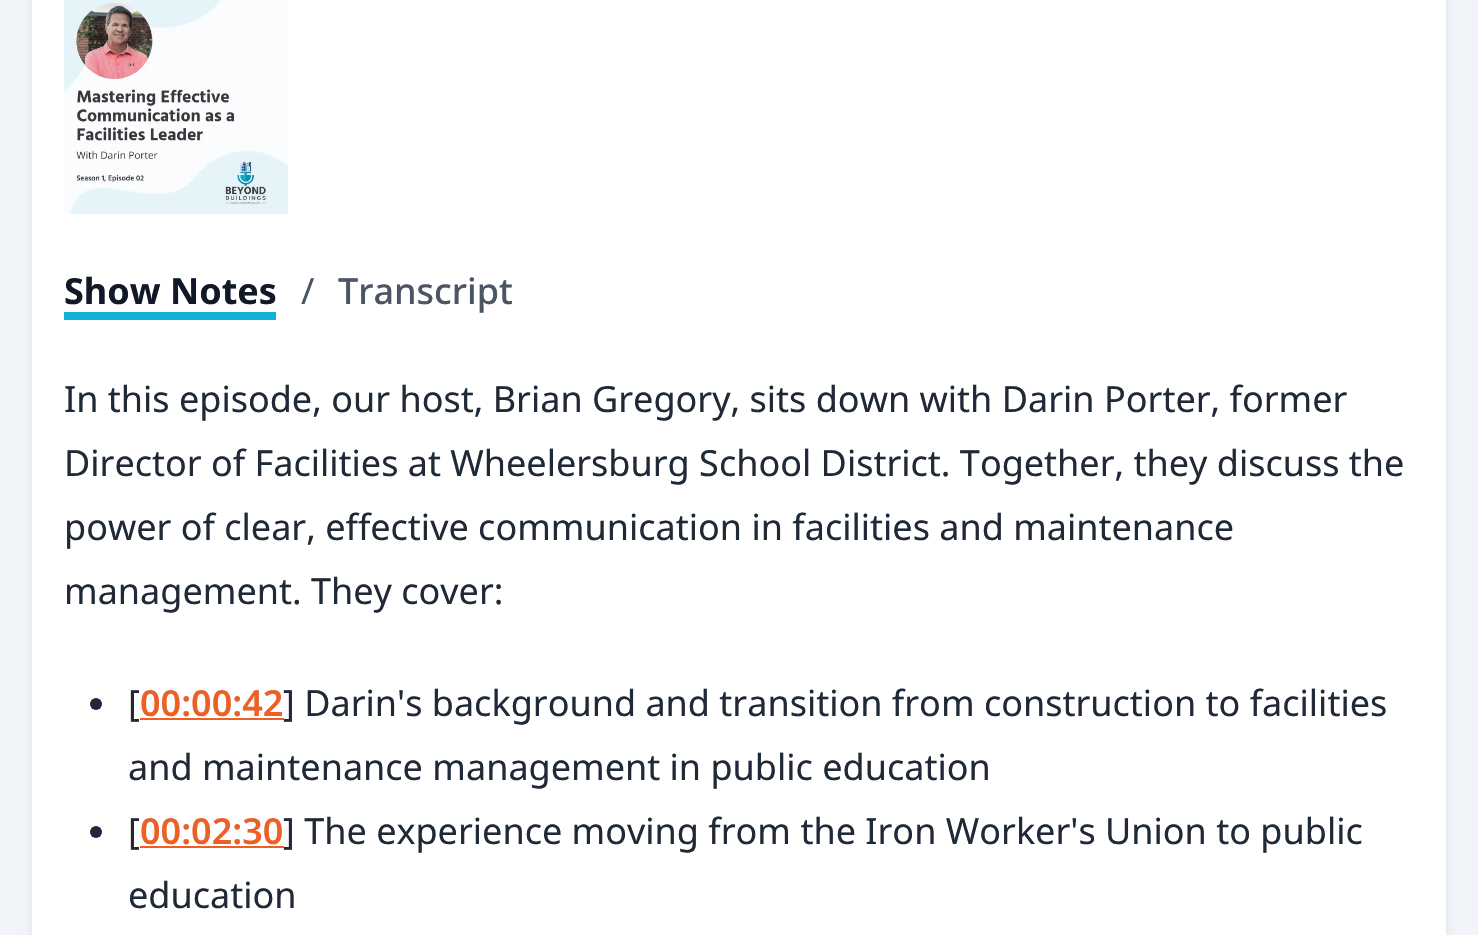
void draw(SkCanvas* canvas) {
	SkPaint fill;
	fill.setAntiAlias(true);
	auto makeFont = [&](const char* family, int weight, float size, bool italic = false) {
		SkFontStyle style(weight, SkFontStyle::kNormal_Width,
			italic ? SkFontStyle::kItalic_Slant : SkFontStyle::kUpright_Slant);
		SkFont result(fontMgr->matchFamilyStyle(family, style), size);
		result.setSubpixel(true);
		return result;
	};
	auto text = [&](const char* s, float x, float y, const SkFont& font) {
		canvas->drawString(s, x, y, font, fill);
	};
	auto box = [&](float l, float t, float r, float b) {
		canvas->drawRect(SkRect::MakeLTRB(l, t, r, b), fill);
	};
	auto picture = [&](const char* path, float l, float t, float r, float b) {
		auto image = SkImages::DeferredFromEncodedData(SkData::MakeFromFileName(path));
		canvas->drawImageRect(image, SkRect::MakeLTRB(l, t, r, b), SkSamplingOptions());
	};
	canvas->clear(0xFFF1F5F9);
	fill.setColor(0x1A000000);
	fill.setMaskFilter(SkMaskFilter::MakeBlur(kNormal_SkBlurStyle, 6));
	canvas->drawRoundRect(SkRect::MakeLTRB(34, -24, 1444, 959), 6, 6, fill);
	fill.setMaskFilter(nullptr);
	fill.setColor(0xFFFFFFFF);
	box(32, 0, 1446, 935);
	picture("image0.png", 64, 0, 288, 214);
	fill.setColor(0xFF12AFD7);
	box(64, 312, 276, 320);
	fill.setColor(0xFF1F2937);
	canvas->drawCircle(96, 704, 6, fill);
	fill.setColor(0xFFEB6025);
	box(140, 718, 284, 720);
	fill.setColor(0xFF1F2937);
	canvas->drawCircle(96, 832, 6, fill);
	fill.setColor(0xFFEB6025);
	box(140, 846, 284, 848);
	auto font1 = makeFont("Noto Sans", 700, 36);
	fill.setColor(0xFF111827);
	text("Show Notes", 64, 304, font1);
	auto font2 = makeFont("Noto Sans", 400, 36);
	fill.setColor(0xFF4B5563);
	text("/", 301, 304, font2);
	auto font3 = makeFont("Noto Sans", 500, 36);
	text("Transcript", 338, 304, font3);
	fill.setColor(0xFF1F2937);
	text("In this episode, our host, Brian Gregory, sits down with Darin Porter, former", 64, 412, font2);
	text("Director of Facilities at Wheelersburg School District. Together, they discuss the", 64, 476, font2);
	text("power of clear, effective communication in facilities and maintenance", 64, 540, font2);
	text("management. They cover:", 64, 604, font2);
	text("[", 128, 716, font2);
	auto font4 = makeFont("Noto Sans", 600, 36);
	fill.setColor(0xFFEB6025);
	text("00:00:42", 140, 716, font4);
	fill.setColor(0xFF1F2937);
	text("] Darin's background and transition from construction to facilities", 283, 716, font2);
	text("and maintenance management in public education", 128, 780, font2);
	text("[", 128, 844, font2);
	fill.setColor(0xFFEB6025);
	text("00:02:30", 140, 844, font4);
	fill.setColor(0xFF1F2937);
	text("] The experience moving from the Iron Worker's Union to public", 283, 844, font2);
	text("education", 128, 908, font2);
}
